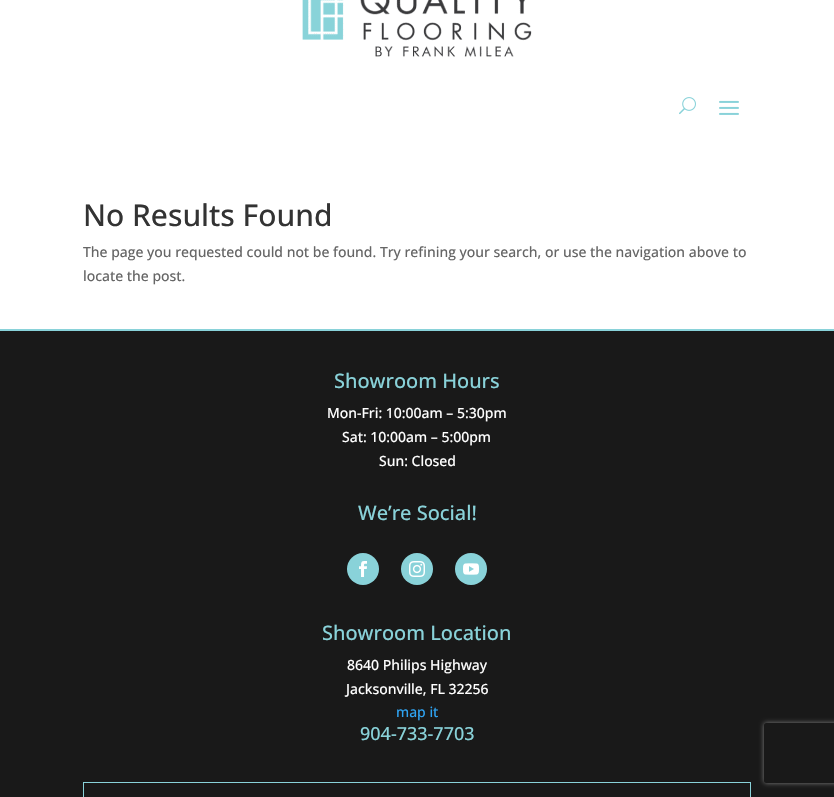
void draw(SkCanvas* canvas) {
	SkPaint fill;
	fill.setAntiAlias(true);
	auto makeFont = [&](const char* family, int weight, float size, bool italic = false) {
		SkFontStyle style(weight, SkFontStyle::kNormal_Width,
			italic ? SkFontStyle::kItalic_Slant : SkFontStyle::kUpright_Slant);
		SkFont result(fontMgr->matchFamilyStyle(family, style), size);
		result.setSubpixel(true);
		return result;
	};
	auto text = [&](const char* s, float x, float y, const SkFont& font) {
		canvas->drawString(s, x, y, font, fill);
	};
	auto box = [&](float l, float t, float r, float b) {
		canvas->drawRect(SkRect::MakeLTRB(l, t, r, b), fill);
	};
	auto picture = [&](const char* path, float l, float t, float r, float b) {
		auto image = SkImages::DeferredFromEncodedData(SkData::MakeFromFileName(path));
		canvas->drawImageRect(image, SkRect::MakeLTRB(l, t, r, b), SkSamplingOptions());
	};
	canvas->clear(0xFFFFFFFF);
	picture("image0.png", 302, 0, 532, 57);
	picture("image1.png", 679, 97, 696, 115);
	picture("image2.png", 719, 100, 739, 115);
	fill.setColor(0xFF191919);
	box(0, 331, 834, 797);
	fill.setColor(0xFF89D2D9);
	box(0, 329, 834, 331);
	canvas->drawCircle(363, 569, 16, fill);
	picture("image3.png", 359, 561, 367, 577);
	canvas->drawCircle(417, 569, 16, fill);
	picture("image4.png", 409, 561, 425, 577);
	canvas->drawCircle(471, 569, 16, fill);
	picture("image5.png", 463, 563, 479, 575);
	fill.setStyle(SkPaint::kStroke_Style);
	fill.setStrokeWidth(1);
	canvas->drawRect(SkRect::MakeLTRB(83.5f, 782.5f, 750.5f, 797.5f), fill);
	canvas->save();
	canvas->clipPath(SkPathBuilder(SkPathFillType::kEvenOdd).moveTo(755, 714).lineTo(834, 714).lineTo(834, 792).lineTo(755, 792).close().moveTo(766, 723).lineTo(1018, 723).cubicTo(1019, 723, 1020, 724, 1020, 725).lineTo(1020, 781).cubicTo(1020, 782, 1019, 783, 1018, 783).lineTo(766, 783).cubicTo(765, 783, 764, 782, 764, 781).lineTo(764, 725).cubicTo(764, 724, 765, 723, 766, 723).close().detach(), true);
	fill.setStyle(SkPaint::kFill_Style);
	fill.setColor(0xFF808080);
	fill.setMaskFilter(SkMaskFilter::MakeBlur(kNormal_SkBlurStyle, 2.5f));
	canvas->drawRoundRect(SkRect::MakeLTRB(764, 723, 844, 783), 2, 2, fill);
	fill.setMaskFilter(nullptr);
	canvas->restore();
	auto font1 = makeFont("Open Sans", 500, 30);
	fill.setColor(0xFF333333);
	text("No Results Found", 83, 226, font1);
	auto font2 = makeFont("Open Sans", 500, 14);
	fill.setColor(0xFF666666);
	text("The page you requested could not be found. Try refining your search, or use the navigation above to", 83, 257, font2);
	text("locate the post.", 83, 281, font2);
	auto font3 = makeFont("Open Sans", 500, 20);
	fill.setColor(0xFF89D2D9);
	text("Showroom Hours", 334, 388, font3);
	fill.setColor(0xFFFFFFFF);
	text("Mon-Fri: 10:00am – 5:30pm", 327, 418, font2);
	text("Sat: 10:00am – 5:00pm", 342, 442, font2);
	text("Sun: Closed", 379, 466, font2);
	fill.setColor(0xFF89D2D9);
	text("We’re Social!", 358, 520, font3);
	text("Showroom Location", 322, 640, font3);
	fill.setColor(0xFFFFFFFF);
	text("8640 Philips Highway", 347, 670, font2);
	text("Jacksonville, FL 32256", 346, 694, font2);
	fill.setColor(0xFF2EA3F2);
	text("map it", 396, 717, font2);
	auto font4 = makeFont("Open Sans", 500, 18);
	fill.setColor(0xFF89D2D9);
	text("904-733-7703", 360, 740, font4);
}
